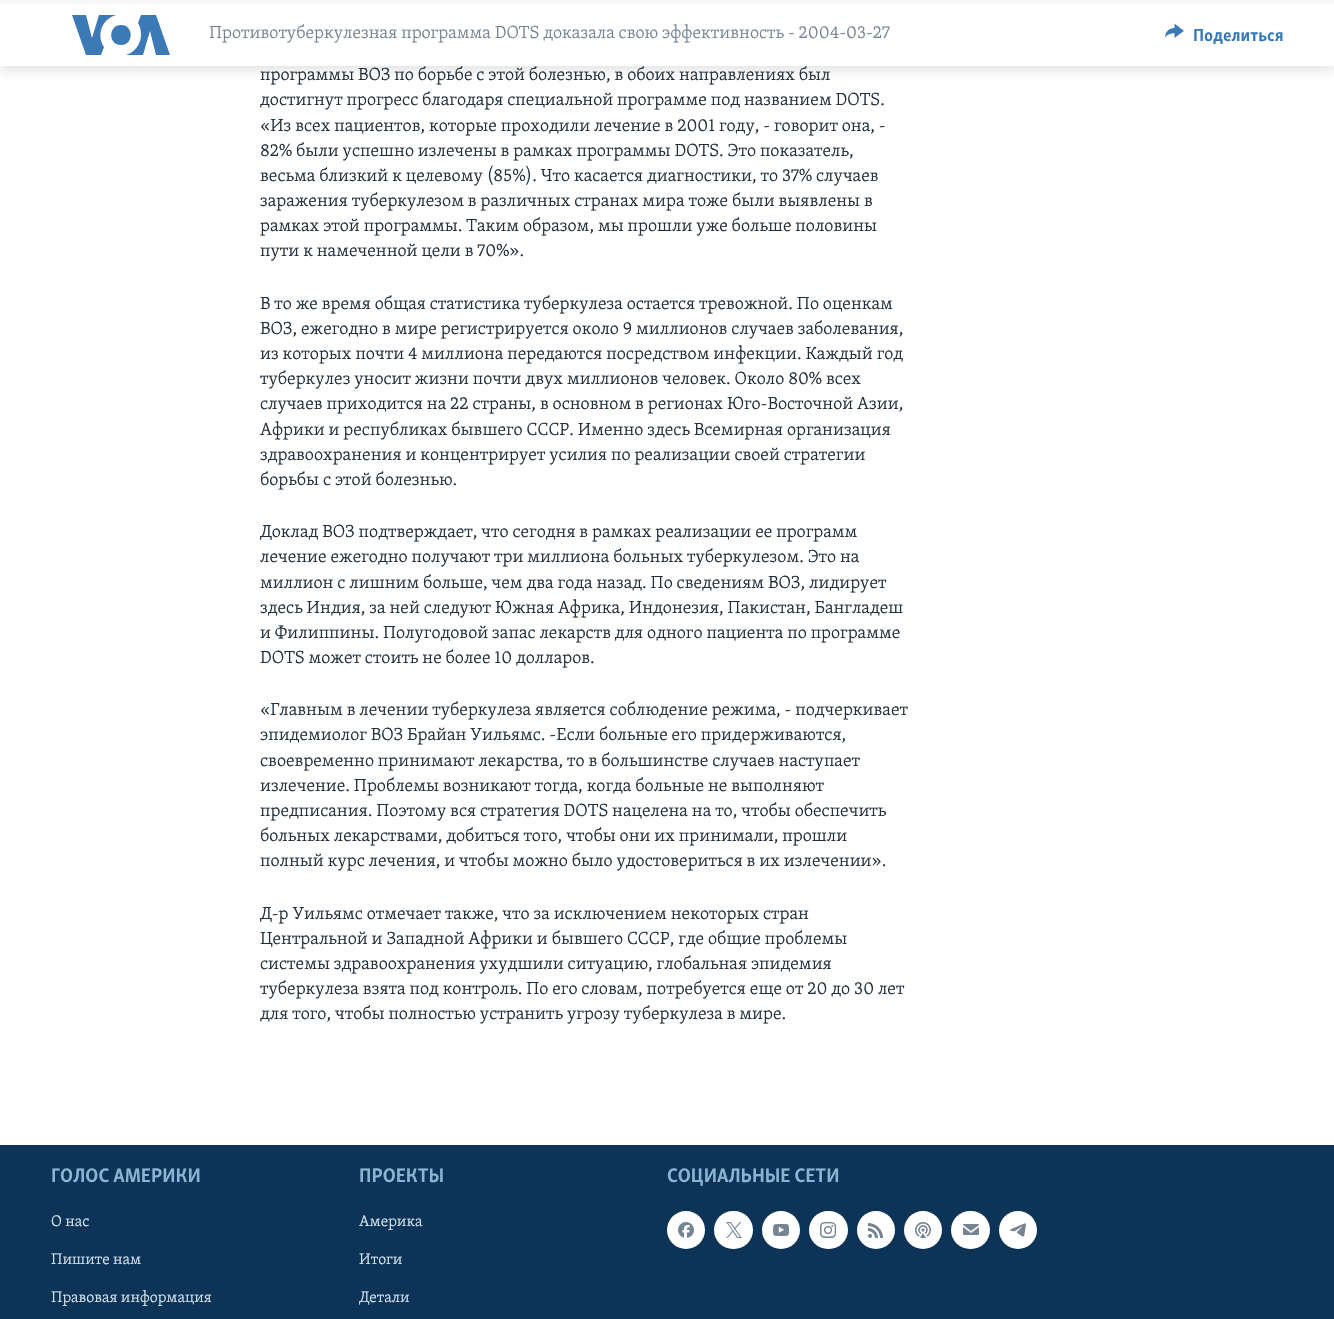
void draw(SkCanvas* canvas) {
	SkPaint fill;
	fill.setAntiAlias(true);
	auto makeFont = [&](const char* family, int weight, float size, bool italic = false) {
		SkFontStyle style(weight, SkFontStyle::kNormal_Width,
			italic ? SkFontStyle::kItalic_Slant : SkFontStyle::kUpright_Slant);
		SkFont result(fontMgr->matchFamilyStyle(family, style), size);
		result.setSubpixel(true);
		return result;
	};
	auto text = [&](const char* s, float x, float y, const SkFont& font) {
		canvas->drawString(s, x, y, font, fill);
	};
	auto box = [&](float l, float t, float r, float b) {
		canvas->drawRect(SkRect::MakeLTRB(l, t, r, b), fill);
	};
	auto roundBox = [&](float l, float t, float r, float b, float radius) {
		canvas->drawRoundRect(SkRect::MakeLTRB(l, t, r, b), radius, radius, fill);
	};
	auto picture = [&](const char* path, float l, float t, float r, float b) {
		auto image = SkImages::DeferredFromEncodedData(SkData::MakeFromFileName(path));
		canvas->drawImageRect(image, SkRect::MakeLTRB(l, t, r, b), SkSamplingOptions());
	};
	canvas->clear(0xFFFFFFFF);
	fill.setColor(0x1A000000);
	fill.setMaskFilter(SkMaskFilter::MakeBlur(kNormal_SkBlurStyle, 5));
	canvas->drawRect(SkRect::MakeLTRB(0, 5, 1334, 71), fill);
	fill.setMaskFilter(nullptr);
	fill.setColor(0xFFFFFFFF);
	box(0, 4, 1334, 66);
	fill.setColor(0xFFF6F7F8);
	box(0, 0, 1334, 4);
	fill.setColor(0xFF3B79B7);
	canvas->drawPath(SkPathBuilder().moveTo(104, 47).lineTo(101, 55).lineTo(86, 55).lineTo(72, 15).lineTo(86, 15).lineTo(92, 38).lineTo(99, 15).lineTo(116, 15).cubicTo(102, 19, 96, 35, 104, 47).close().moveTo(121, 25).cubicTo(108, 25, 108, 45, 121, 45).cubicTo(134, 45, 134, 25, 121, 25).close().moveTo(141, 35).cubicTo(141, 44, 135, 52, 126, 55).lineTo(143, 55).lineTo(150, 31).lineTo(156, 55).lineTo(170, 55).lineTo(156, 15).lineTo(141, 15).lineTo(138, 23).cubicTo(140, 26, 141, 30, 141, 35).close().detach(), fill);
	picture("image0.png", 1165, 23, 1184, 38);
	fill.setColor(0xFF0D3456);
	box(0, 1145, 1334, 1319);
	fill.setColor(0xFFFFFFFF);
	canvas->drawCircle(686, 1230, 19, fill);
	picture("image1.png", 678, 1222, 694, 1238);
	roundBox(714, 1211, 753, 1249, 19);
	picture("image2.png", 726, 1222, 742, 1238);
	canvas->drawCircle(781, 1230, 19, fill);
	picture("image3.png", 773, 1224, 789, 1236);
	roundBox(809, 1211, 848, 1249, 19);
	picture("image4.png", 820, 1222, 837, 1238);
	canvas->drawCircle(876, 1230, 19, fill);
	picture("image5.png", 868, 1223, 883, 1238);
	canvas->drawCircle(923, 1230, 19, fill);
	picture("image6.png", 915, 1222, 931, 1238);
	roundBox(951, 1211, 990, 1249, 19);
	picture("image7.png", 963, 1224, 979, 1235);
	canvas->drawCircle(1018, 1230, 19, fill);
	picture("image8.png", 1010, 1223, 1026, 1237);
	auto font1 = makeFont("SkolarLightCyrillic", 300, 18);
	fill.setColor(0xFF768492);
	text("Противотуберкулезная программа DOTS доказала свою эффективность - 2004-03-27", 209, 38, font1);
	auto font2 = makeFont("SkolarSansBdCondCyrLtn", 700, 18);
	fill.setColor(0xFF3A79B7);
	text("Поделиться", 1193, 41, font2);
	fill.setColor(0xFF222F3A);
	text("программы ВОЗ по борьбе с этой болезнью, в обоих направлениях был", 260, 80, font1);
	text("достигнут прогресс благодаря специальной программе под названием DOTS.", 260, 105, font1);
	text("«Из всех пациентов, которые проходили лечение в 2001 году, - говорит она, -", 260, 131, font1);
	text("82% были успешно излечены в рамках программы DOTS. Это показатель,", 260, 156, font1);
	text("весьма близкий к целевому (85%). Что касается диагностики, то 37% случаев", 260, 181, font1);
	text("заражения туберкулезом в различных странах мира тоже были выявлены в", 260, 206, font1);
	text("рамках этой программы. Таким образом, мы прошли уже больше половины", 260, 231, font1);
	text("пути к намеченной цели в 70%».", 260, 256, font1);
	text("В то же время общая статистика туберкулеза остается тревожной. По оценкам", 260, 309, font1);
	text("ВОЗ, ежегодно в мире регистрируется около 9 миллионов случаев заболевания,", 260, 334, font1);
	text("из которых почти 4 миллиона передаются посредством инфекции. Каждый год", 260, 359, font1);
	text("туберкулез уносит жизни почти двух миллионов человек. Около 80% всех", 260, 384, font1);
	text("случаев приходится на 22 страны, в основном в регионах Юго-Восточной Азии,", 260, 409, font1);
	text("Африки и республиках бывшего СССР. Именно здесь Всемирная организация", 260, 435, font1);
	text("здравоохранения и концентрирует усилия по реализации своей стратегии", 260, 460, font1);
	text("борьбы с этой болезнью.", 260, 485, font1);
	text("Доклад ВОЗ подтверждает, что сегодня в рамках реализации ее программ", 260, 537, font1);
	text("лечение ежегодно получают три миллиона больных туберкулезом. Это на", 260, 562, font1);
	text("миллион с лишним больше, чем два года назад. По сведениям ВОЗ, лидирует", 260, 588, font1);
	text("здесь Индия, за ней следуют Южная Африка, Индонезия, Пакистан, Бангладеш", 260, 613, font1);
	text("и Филиппины. Полугодовой запас лекарств для одного пациента по программе", 260, 638, font1);
	text("DOTS может стоить не более 10 долларов.", 260, 663, font1);
	text("«Главным в лечении туберкулеза является соблюдение режима, - подчеркивает", 260, 715, font1);
	text("эпидемиолог ВОЗ Брайан Уильямс. -Если больные его придерживаются,", 260, 740, font1);
	text("своевременно принимают лекарства, то в большинстве случаев наступает", 260, 766, font1);
	text("излечение. Проблемы возникают тогда, когда больные не выполняют", 260, 791, font1);
	text("предписания. Поэтому вся стратегия DOTS нацелена на то, чтобы обеспечить", 260, 816, font1);
	text("больных лекарствами, добиться того, чтобы они их принимали, прошли", 260, 841, font1);
	text("полный курс лечения, и чтобы можно было удостовериться в их излечении».", 260, 866, font1);
	text("Д-р Уильямс отмечает также, что за исключением некоторых стран", 260, 919, font1);
	text("Центральной и Западной Африки и бывшего СCCР, где общие проблемы", 260, 944, font1);
	text("системы здравоохранения ухудшили ситуацию, глобальная эпидемия", 260, 969, font1);
	text("туберкулеза взята под контроль. По его словам, потребуется еще от 20 до 30 лет", 260, 994, font1);
	text("для того, чтобы полностью устранить угрозу туберкулеза в мире.", 260, 1019, font1);
	auto font3 = makeFont("SkolarSansBdCondCyrLtn", 700, 20.25f);
	fill.setColor(0xFF8DB3D4);
	text("ГОЛОС АМЕРИКИ", 51, 1182, font3);
	auto font4 = makeFont("SkolarLightCyrillic", 300, 15.75f);
	fill.setColor(0xFFD1E1EE);
	text("О нас", 51, 1226, font4);
	text("Пишите нам", 51, 1264, font4);
	text("Правовая информация", 51, 1302, font4);
	fill.setColor(0xFF8DB3D4);
	text("ПРОЕКТЫ", 359, 1182, font3);
	fill.setColor(0xFFD1E1EE);
	text("Америка", 359, 1226, font4);
	text("Итоги", 359, 1264, font4);
	text("Детали", 359, 1302, font4);
	fill.setColor(0xFF8DB3D4);
	text("СОЦИАЛЬНЫЕ СЕТИ", 667, 1182, font3);
}
